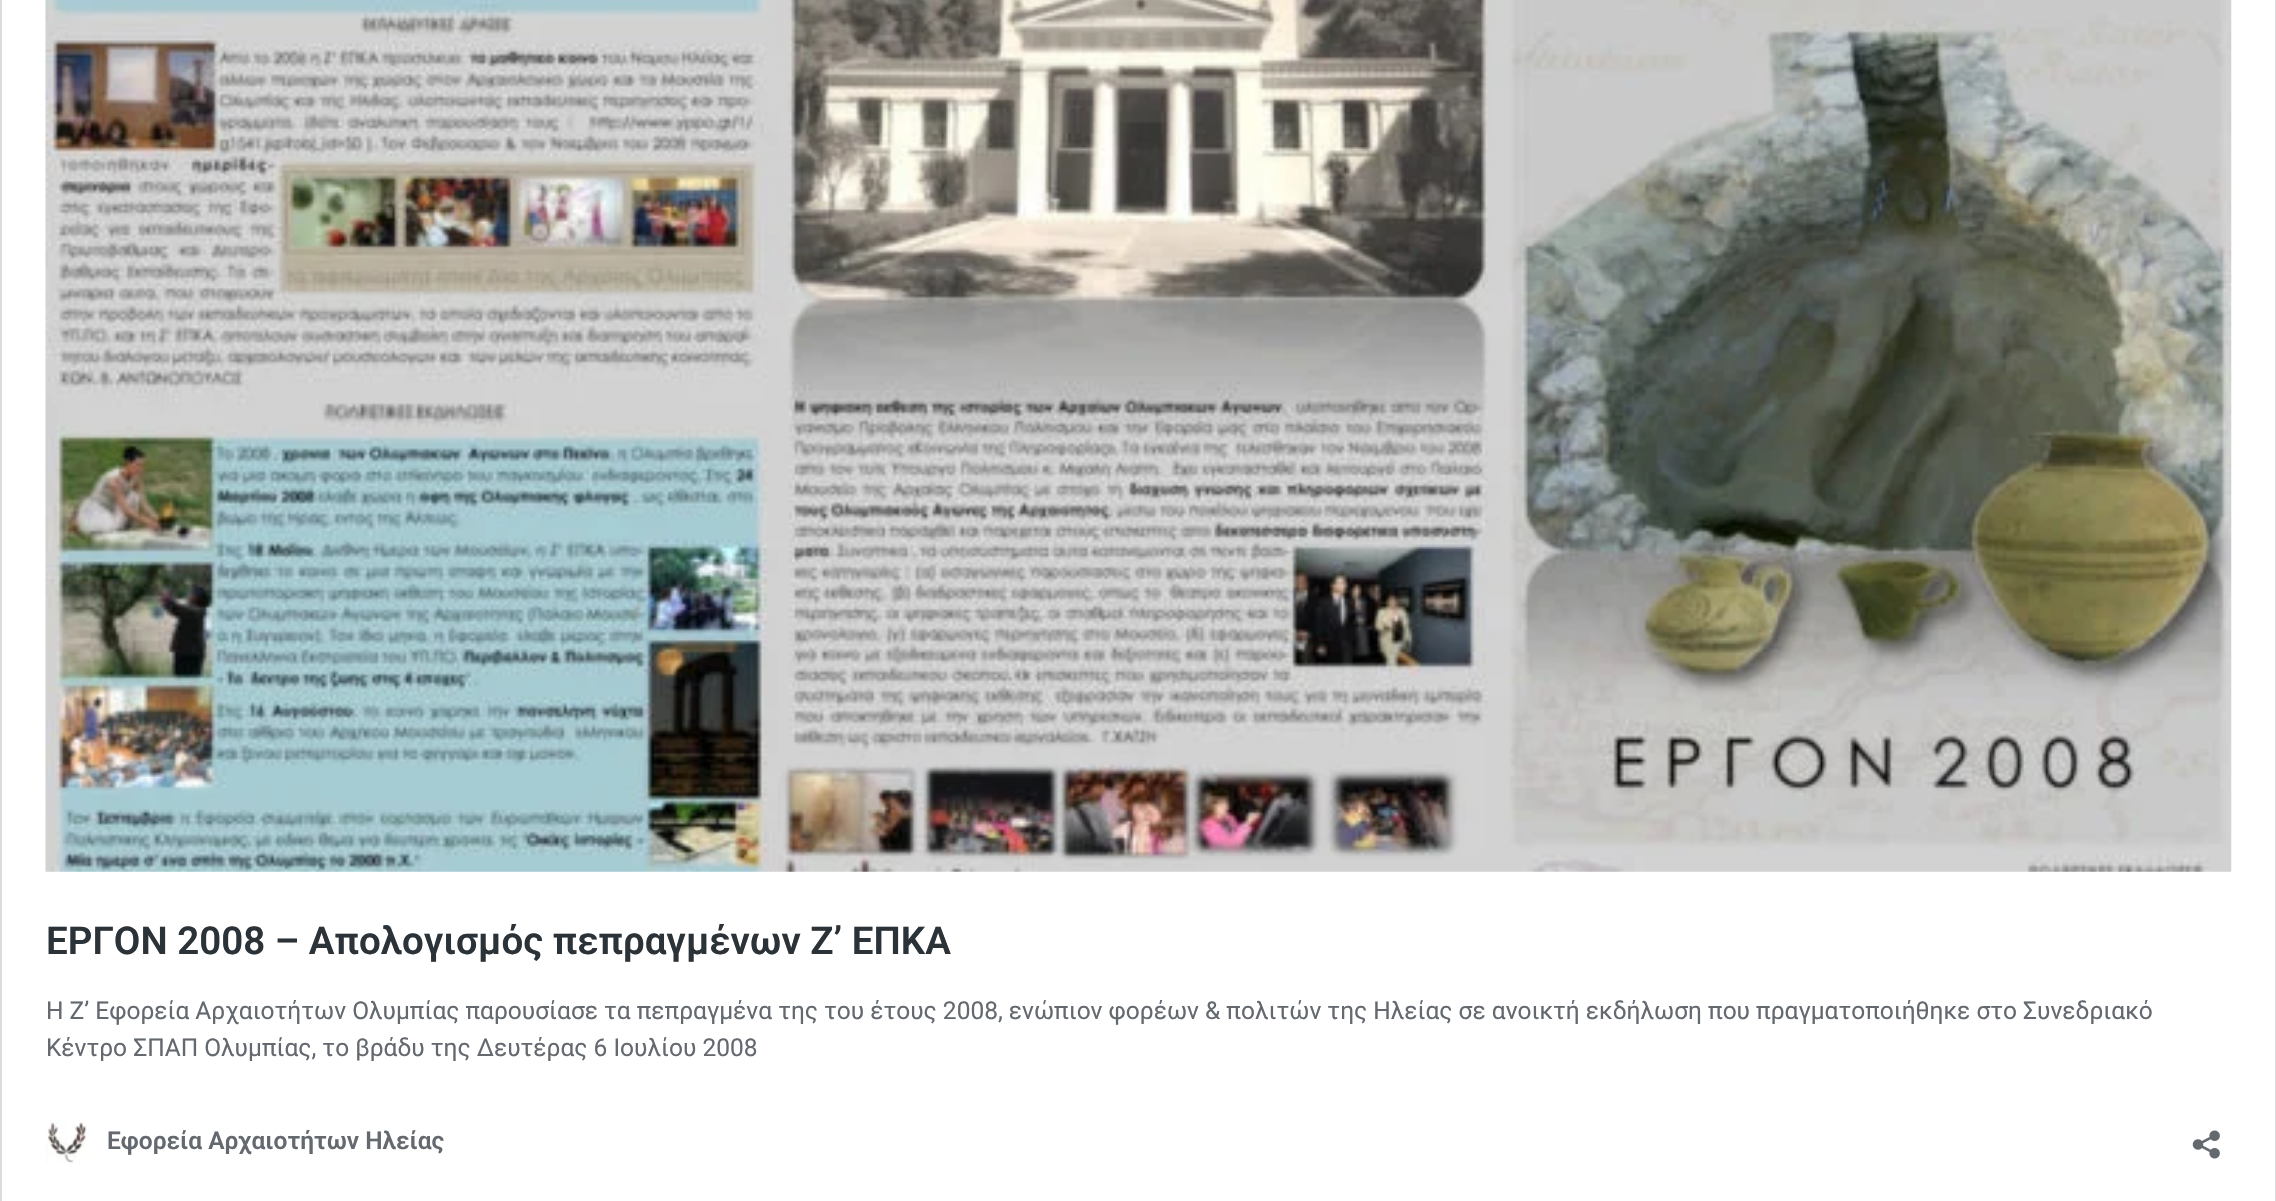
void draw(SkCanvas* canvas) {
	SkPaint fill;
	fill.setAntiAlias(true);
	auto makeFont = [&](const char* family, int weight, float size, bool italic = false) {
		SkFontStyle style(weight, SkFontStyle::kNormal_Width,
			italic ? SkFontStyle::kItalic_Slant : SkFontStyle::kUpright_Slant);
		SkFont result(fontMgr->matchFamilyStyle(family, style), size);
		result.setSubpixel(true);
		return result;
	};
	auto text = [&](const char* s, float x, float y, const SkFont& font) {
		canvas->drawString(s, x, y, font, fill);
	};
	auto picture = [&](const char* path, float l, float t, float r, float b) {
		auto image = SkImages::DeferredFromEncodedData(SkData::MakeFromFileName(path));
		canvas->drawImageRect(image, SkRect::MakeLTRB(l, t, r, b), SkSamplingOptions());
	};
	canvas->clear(0xFFFFFFFF);
	fill.setStyle(SkPaint::kStroke_Style);
	fill.setStrokeWidth(2);
	fill.setColor(0xFFDCDCDE);
	canvas->drawRect(SkRect::MakeLTRB(1, -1, 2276, 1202), fill);
	picture("image0.png", 45, 0, 2232, 872);
	picture("image1.png", 46, 1119, 89, 1163);
	picture("image2.png", 2192, 1130, 2220, 1159);
	auto font1 = makeFont("Roboto", 600, 38.5f);
	fill.setStyle(SkPaint::kFill_Style);
	fill.setColor(0xFF2C3338);
	text("ΕΡΓΟΝ 2008 – Απολογισμός πεπραγμένων Ζ’ ΕΠΚΑ", 46, 954, font1);
	auto font2 = makeFont("Roboto", 400, 24.5f);
	fill.setColor(0xFF646970);
	text("Η Ζ’ Εφορεία Αρχαιοτήτων Ολυμπίας παρουσίασε τα πεπραγμένα της του έτους 2008, ενώπιον φορέων & πολιτών της Ηλείας σε ανοικτή εκδήλωση που πραγματοποιήθηκε στο Συνεδριακό", 46, 1019, font2);
	text("Κέντρο ΣΠΑΠ Ολυμπίας, το βράδυ της Δευτέρας 6 Ιουλίου 2008", 46, 1056, font2);
	auto font3 = makeFont("Roboto", 600, 24.5f);
	text("Εφορεία Αρχαιοτήτων Ηλείας", 107, 1149, font3);
}
